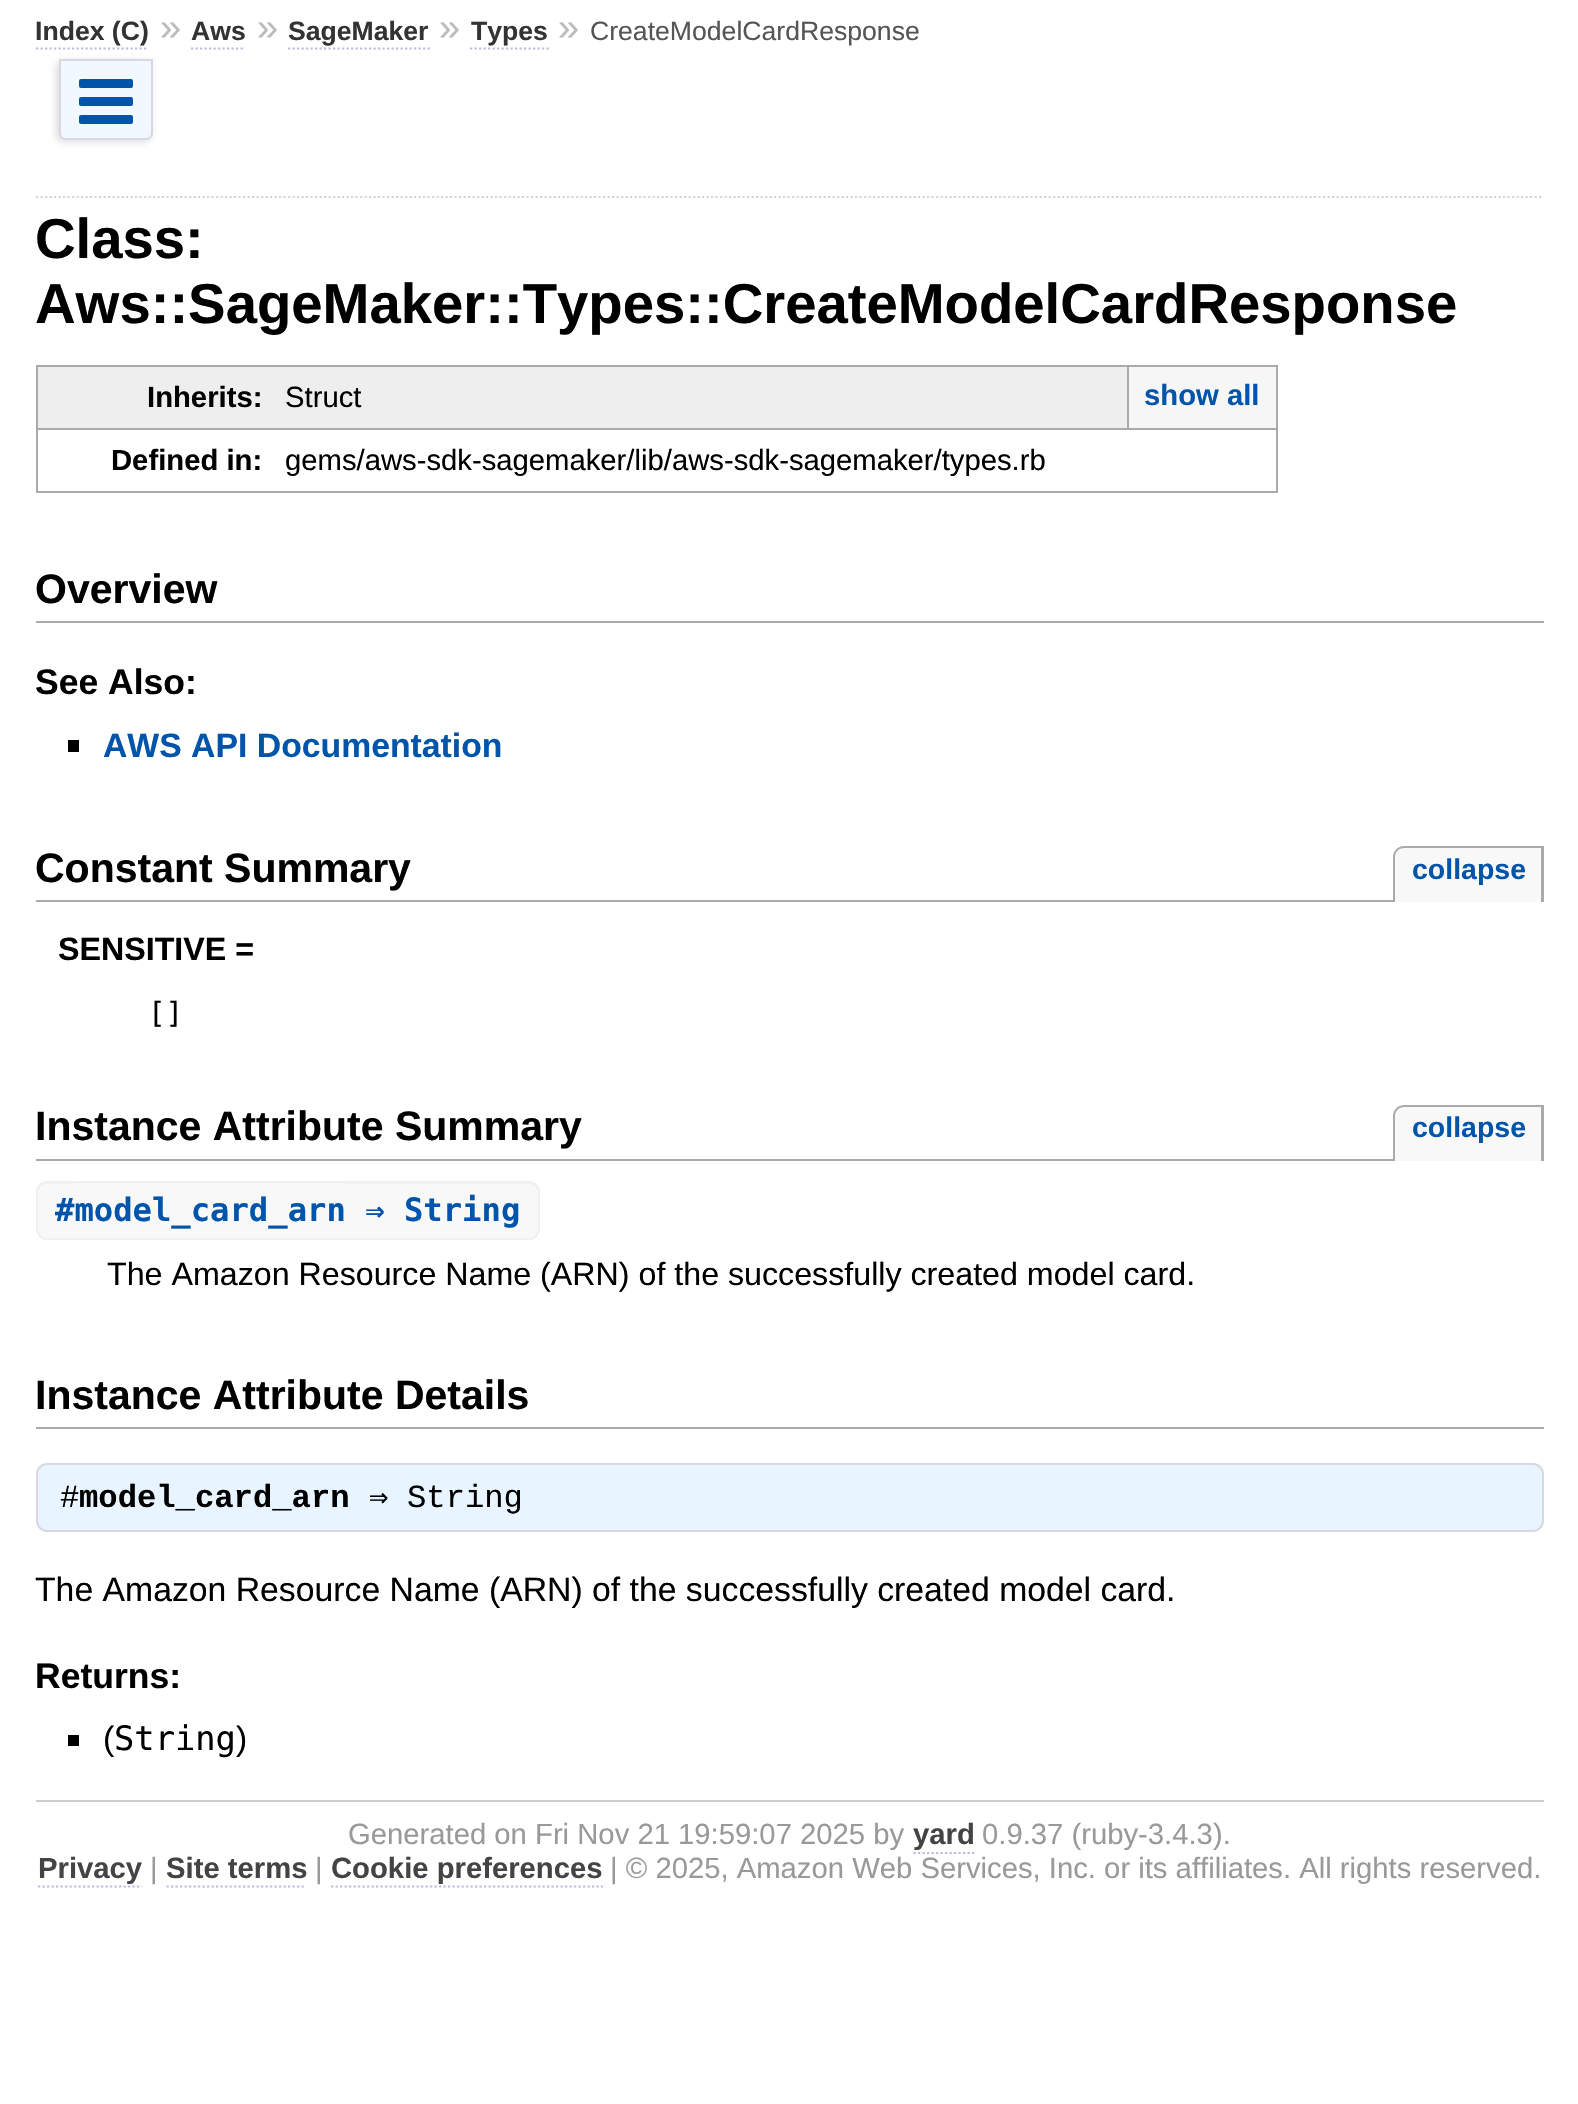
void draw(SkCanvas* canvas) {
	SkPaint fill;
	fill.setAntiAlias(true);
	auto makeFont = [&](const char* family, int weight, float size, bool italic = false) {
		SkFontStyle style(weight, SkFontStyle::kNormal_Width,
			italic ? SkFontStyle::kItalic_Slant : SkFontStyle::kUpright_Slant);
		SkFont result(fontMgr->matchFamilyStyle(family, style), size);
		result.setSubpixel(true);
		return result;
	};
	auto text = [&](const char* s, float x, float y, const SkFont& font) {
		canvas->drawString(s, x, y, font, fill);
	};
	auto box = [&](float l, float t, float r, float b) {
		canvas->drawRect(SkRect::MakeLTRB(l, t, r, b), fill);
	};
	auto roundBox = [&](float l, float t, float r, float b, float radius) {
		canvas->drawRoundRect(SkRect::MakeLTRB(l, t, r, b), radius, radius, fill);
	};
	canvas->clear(0xFFFFFFFF);
	fill.setColor(0xFFDDDDDD);
	fill.setMaskFilter(SkMaskFilter::MakeBlur(kNormal_SkBlurStyle, 3.5f));
	canvas->drawRoundRect(SkRect::MakeLTRB(56, 61, 151, 142), 7, 7, fill);
	fill.setMaskFilter(nullptr);
	fill.setStyle(SkPaint::kStroke_Style);
	fill.setStrokeWidth(2.2f);
	fill.setColor(0xFFBBBBDD);
	fill.setPathEffect(SkDashPathEffect::Make({{2.25f, 2.25f}}, 0));
	canvas->drawPath(SkPathBuilder().moveTo(36, 48.5f).lineTo(148.5f, 48.5f).detach(), fill);
	fill.setPathEffect(nullptr);
	fill.setPathEffect(SkDashPathEffect::Make({{2.25f, 2.25f}}, 0));
	canvas->drawPath(SkPathBuilder().moveTo(191, 48.5f).lineTo(245, 48.5f).detach(), fill);
	fill.setPathEffect(nullptr);
	fill.setPathEffect(SkDashPathEffect::Make({{2.25f, 2.25f}}, 0));
	canvas->drawPath(SkPathBuilder().moveTo(288, 48.5f).lineTo(430, 48.5f).detach(), fill);
	fill.setPathEffect(nullptr);
	fill.setPathEffect(SkDashPathEffect::Make({{2.25f, 2.25f}}, 0));
	canvas->drawPath(SkPathBuilder().moveTo(470, 48.5f).lineTo(549, 48.5f).detach(), fill);
	fill.setPathEffect(nullptr);
	fill.setStyle(SkPaint::kFill_Style);
	fill.setColor(0xFFF1F8FF);
	canvas->drawPath(SkPathBuilder().moveTo(60, 60).lineTo(152, 60).lineTo(152, 133).cubicTo(152, 136.5f, 149.5f, 139, 146, 139).lineTo(66, 139).cubicTo(62.5f, 139, 60, 136.5f, 60, 133).close().detach(), fill);
	fill.setStyle(SkPaint::kStroke_Style);
	fill.setStrokeWidth(2);
	fill.setColor(0xFFD8D8E5);
	canvas->drawPath(SkPathBuilder().moveTo(60, 60).lineTo(152, 60).lineTo(152, 133).cubicTo(152, 136.5f, 149.5f, 139, 146, 139).lineTo(66, 139).cubicTo(62.5f, 139, 60, 136.5f, 60, 133).close().detach(), fill);
	fill.setStyle(SkPaint::kFill_Style);
	fill.setColor(0xFF0055AA);
	roundBox(79, 79, 133, 88, 2);
	roundBox(79, 97, 133, 106, 2);
	roundBox(79, 115, 133, 124, 2);
	fill.setStyle(SkPaint::kStroke_Style);
	fill.setStrokeWidth(2.2f);
	fill.setColor(0xFFD5D5D5);
	fill.setPathEffect(SkDashPathEffect::Make({{2.25f, 2.25f}}, 0));
	canvas->drawPath(SkPathBuilder().moveTo(36, 197).lineTo(1543.5f, 197).detach(), fill);
	fill.setPathEffect(nullptr);
	fill.setStyle(SkPaint::kFill_Style);
	fill.setColor(0xFFEEEEEE);
	box(38, 367, 1127, 428);
	fill.setColor(0xFFAAAAAA);
	box(36, 365, 1278, 367);
	box(36, 365, 38, 428);
	box(36, 428, 1278, 430);
	box(1276, 365, 1278, 493);
	fill.setColor(0xFFF6F6F6);
	box(1129, 367, 1276, 428);
	fill.setColor(0xFFAAAAAA);
	box(1127, 367, 1129, 428);
	box(36, 491, 286, 493);
	box(36, 428, 38, 493);
	box(286, 491, 1278, 493);
	box(36, 621, 1544, 623);
	fill.setColor(0xFF000000);
	box(68, 740, 79, 752);
	fill.setColor(0xFFAAAAAA);
	box(36, 900, 1393, 902);
	fill.setColor(0xFFF8F8F8);
	canvas->drawPath(SkPathBuilder().moveTo(1404, 846).lineTo(1544, 846).lineTo(1544, 902).lineTo(1393, 902).lineTo(1393, 857).cubicTo(1393, 851, 1398, 846, 1404, 846).close().detach(), fill);
	fill.setColor(0xFFAAAAAA);
	canvas->drawPath(SkPathBuilder(SkPathFillType::kEvenOdd).moveTo(1404, 846).lineTo(1544, 846).lineTo(1544, 902).lineTo(1393, 902).lineTo(1393, 857).cubicTo(1393, 851, 1398, 846, 1404, 846).close().moveTo(1404, 848).lineTo(1541, 848).lineTo(1541, 902).lineTo(1395, 902).lineTo(1395, 857).cubicTo(1395, 852, 1399, 848, 1404, 848).close().detach(), fill);
	box(36, 1159, 1393, 1161);
	fill.setColor(0xFFF8F8F8);
	canvas->drawPath(SkPathBuilder().moveTo(1404, 1105).lineTo(1544, 1105).lineTo(1544, 1161).lineTo(1393, 1161).lineTo(1393, 1116).cubicTo(1393, 1110, 1398, 1105, 1404, 1105).close().detach(), fill);
	fill.setColor(0xFFAAAAAA);
	canvas->drawPath(SkPathBuilder(SkPathFillType::kEvenOdd).moveTo(1404, 1105).lineTo(1544, 1105).lineTo(1544, 1161).lineTo(1393, 1161).lineTo(1393, 1116).cubicTo(1393, 1110, 1398, 1105, 1404, 1105).close().moveTo(1404, 1107).lineTo(1541, 1107).lineTo(1541, 1161).lineTo(1395, 1161).lineTo(1395, 1116).cubicTo(1395, 1111, 1399, 1107, 1404, 1107).close().detach(), fill);
	fill.setColor(0xFFF8F8F8);
	canvas->drawPath(SkPathBuilder().moveTo(47, 1181).lineTo(74, 1181).lineTo(74, 1240).lineTo(47, 1240).cubicTo(41, 1240, 36, 1235, 36, 1229).lineTo(36, 1192).cubicTo(36, 1186, 41, 1181, 47, 1181).close().detach(), fill);
	fill.setColor(0xFFF0F0F0);
	canvas->drawPath(SkPathBuilder(SkPathFillType::kEvenOdd).moveTo(47, 1181).lineTo(74, 1181).lineTo(74, 1240).lineTo(47, 1240).cubicTo(41, 1240, 36, 1235, 36, 1228).lineTo(36, 1192).cubicTo(36, 1186, 41, 1181, 47, 1181).close().moveTo(47, 1184).lineTo(74, 1184).lineTo(74, 1238).lineTo(47, 1238).cubicTo(42, 1238, 38, 1233, 38, 1228).lineTo(38, 1192).cubicTo(38, 1188, 42, 1184, 47, 1184).close().detach(), fill);
	fill.setColor(0xFFF8F8F8);
	box(74, 1183, 347, 1238);
	fill.setColor(0xFFF0F0F0);
	box(74, 1181, 347, 1183);
	box(74, 1238, 347, 1240);
	fill.setColor(0xFFF8F8F8);
	canvas->drawPath(SkPathBuilder().moveTo(347, 1181).lineTo(529, 1181).cubicTo(535, 1181, 540, 1186, 540, 1192).lineTo(540, 1229).cubicTo(540, 1235, 535, 1240, 529, 1240).lineTo(347, 1240).close().detach(), fill);
	fill.setColor(0xFFF0F0F0);
	canvas->drawPath(SkPathBuilder(SkPathFillType::kEvenOdd).moveTo(346, 1181).lineTo(529, 1181).cubicTo(535, 1181, 540, 1186, 540, 1192).lineTo(540, 1228).cubicTo(540, 1235, 535, 1240, 529, 1240).lineTo(346, 1240).close().moveTo(346, 1184).lineTo(529, 1184).cubicTo(534, 1184, 538, 1188, 538, 1192).lineTo(538, 1228).cubicTo(538, 1233, 534, 1238, 529, 1238).lineTo(346, 1238).close().detach(), fill);
	fill.setColor(0xFFAAAAAA);
	box(36, 1427, 1544, 1429);
	fill.setColor(0xFFE8F4FF);
	canvas->drawRoundRect(SkRect::MakeLTRB(37, 1464, 1543, 1531), 10, 10, fill);
	fill.setStyle(SkPaint::kStroke_Style);
	fill.setStrokeWidth(2);
	fill.setColor(0xFFD8D8E5);
	canvas->drawRoundRect(SkRect::MakeLTRB(37, 1464, 1543, 1531), 10, 10, fill);
	fill.setStyle(SkPaint::kFill_Style);
	fill.setColor(0xFF000000);
	box(68, 1735, 79, 1746);
	fill.setColor(0xFFCCCCCC);
	box(36, 1800, 1544, 1802);
	fill.setStyle(SkPaint::kStroke_Style);
	fill.setStrokeWidth(2.2f);
	fill.setColor(0xFFBBBBDD);
	fill.setPathEffect(SkDashPathEffect::Make({{2.25f, 2.25f}}, 0));
	canvas->drawPath(SkPathBuilder().moveTo(913.5f, 1853).lineTo(974, 1853).detach(), fill);
	fill.setPathEffect(nullptr);
	fill.setPathEffect(SkDashPathEffect::Make({{2.25f, 2.25f}}, 0));
	canvas->drawPath(SkPathBuilder().moveTo(38, 1886.5f).lineTo(142, 1886.5f).detach(), fill);
	fill.setPathEffect(nullptr);
	fill.setPathEffect(SkDashPathEffect::Make({{2.25f, 2.25f}}, 0));
	canvas->drawPath(SkPathBuilder().moveTo(166.5f, 1886.5f).lineTo(306, 1886.5f).detach(), fill);
	fill.setPathEffect(nullptr);
	fill.setPathEffect(SkDashPathEffect::Make({{2.25f, 2.25f}}, 0));
	canvas->drawPath(SkPathBuilder().moveTo(331, 1886.5f).lineTo(603, 1886.5f).detach(), fill);
	fill.setPathEffect(nullptr);
	auto font1 = makeFont("Liberation Sans", 700, 26.6f);
	fill.setStyle(SkPaint::kFill_Style);
	fill.setColor(0xFF333333);
	text("Index (C)", 35, 40, font1);
	auto font2 = makeFont("Liberation Sans", 400, 38);
	fill.setColor(0xFFBBBBBB);
	text("»", 160, 40, font2);
	fill.setColor(0xFF333333);
	text("Aws", 191, 40, font1);
	fill.setColor(0xFFBBBBBB);
	text("»", 257, 40, font2);
	fill.setColor(0xFF333333);
	text("SageMaker", 288, 40, font1);
	fill.setColor(0xFFBBBBBB);
	text("»", 439, 40, font2);
	fill.setColor(0xFF333333);
	text("Types", 471, 40, font1);
	fill.setColor(0xFFBBBBBB);
	text("»", 558, 40, font2);
	auto font3 = makeFont("Liberation Sans", 400, 26.6f);
	fill.setColor(0xFF555555);
	text("CreateModelCardResponse", 590, 40, font3);
	auto font4 = makeFont("Liberation Sans", 700, 56.25f);
	fill.setColor(0xFF000000);
	text("Class:", 35, 258, font4);
	text("Aws::SageMaker::Types::CreateModelCardResponse", 35, 323, font4);
	auto font5 = makeFont("Liberation Sans", 700, 29.25f);
	text("Inherits:", 147, 407, font5);
	auto font6 = makeFont("Liberation Sans", 400, 29.25f);
	text("Struct", 285, 407, font6);
	fill.setColor(0xFF0055AA);
	text("show all", 1144, 405, font5);
	fill.setColor(0xFF000000);
	text("Defined in:", 111, 470, font5);
	text("gems/aws-sdk-sagemaker/lib/aws-sdk-sagemaker/types.rb", 285, 470, font6);
	auto font7 = makeFont("Liberation Sans", 700, 41);
	text("Overview", 35, 603, font7);
	auto font8 = makeFont("Liberation Sans", 700, 35.5f);
	text("See Also:", 35, 694, font8);
	auto font9 = makeFont("Liberation Sans", 700, 33.75f);
	fill.setColor(0xFF0055AA);
	text("AWS API Documentation", 103, 757, font9);
	fill.setColor(0xFF000000);
	text("Constant Summary", 35, 882, font7);
	auto font10 = makeFont("Liberation Sans", 700, 28.5f);
	fill.setColor(0xFF0055AA);
	text("collapse", 1412, 879, font10);
	auto font11 = makeFont("Liberation Sans", 700, 32.2f);
	fill.setColor(0xFF000000);
	text("SENSITIVE =", 58, 960, font11);
	auto font12 = makeFont("DejaVu Sans Mono", 400, 29.25f);
	text("[]", 148, 1023, font12);
	text("Instance Attribute Summary", 35, 1140, font7);
	fill.setColor(0xFF0055AA);
	text("collapse", 1412, 1137, font10);
	auto font13 = makeFont("DejaVu Sans Mono", 700, 32.2f);
	text("#model_card_arn ⇒ String", 55, 1221, font13);
	auto font14 = makeFont("Liberation Sans", 400, 32.2f);
	fill.setColor(0xFF000000);
	text("The Amazon Resource Name (ARN) of the successfully created model card.", 107, 1285, font14);
	text("Instance Attribute Details", 35, 1409, font7);
	auto font15 = makeFont("Liberation Mono", 400, 32.2f);
	text("#", 60, 1507, font15);
	auto font16 = makeFont("Liberation Mono", 700, 32.2f);
	text("model_card_arn", 79, 1507, font16);
	auto font17 = makeFont("DejaVu Sans Mono", 400, 32.2f);
	text("⇒", 369, 1507, font17);
	text("String", 407, 1507, font15);
	auto font18 = makeFont("Liberation Sans", 400, 33.75f);
	text("The Amazon Resource Name (ARN) of the successfully created model card.", 35, 1601, font18);
	text("Returns:", 35, 1688, font8);
	text("(", 103, 1750, font18);
	auto font19 = makeFont("DejaVu Sans Mono", 400, 33.75f);
	text("String", 114, 1750, font19);
	text(")", 236, 1750, font18);
	fill.setColor(0xFF999999);
	text("Generated on Fri Nov 21 19:59:07 2025 by", 348, 1844, font6);
	fill.setColor(0xFF444444);
	text("yard", 913, 1844, font5);
	fill.setColor(0xFF999999);
	text("0.9.37 (ruby-3.4.3).", 982, 1844, font6);
	fill.setColor(0xFF444444);
	text("Privacy", 38, 1878, font5);
	fill.setColor(0xFF999999);
	text("|", 150, 1878, font6);
	fill.setColor(0xFF444444);
	text("Site terms", 166, 1878, font5);
	fill.setColor(0xFF999999);
	text("|", 315, 1878, font6);
	fill.setColor(0xFF444444);
	text("Cookie preferences", 331, 1878, font5);
	fill.setColor(0xFF999999);
	text("| © 2025, Amazon Web Services, Inc. or its affiliates. All rights reserved.", 610, 1878, font6);
}
